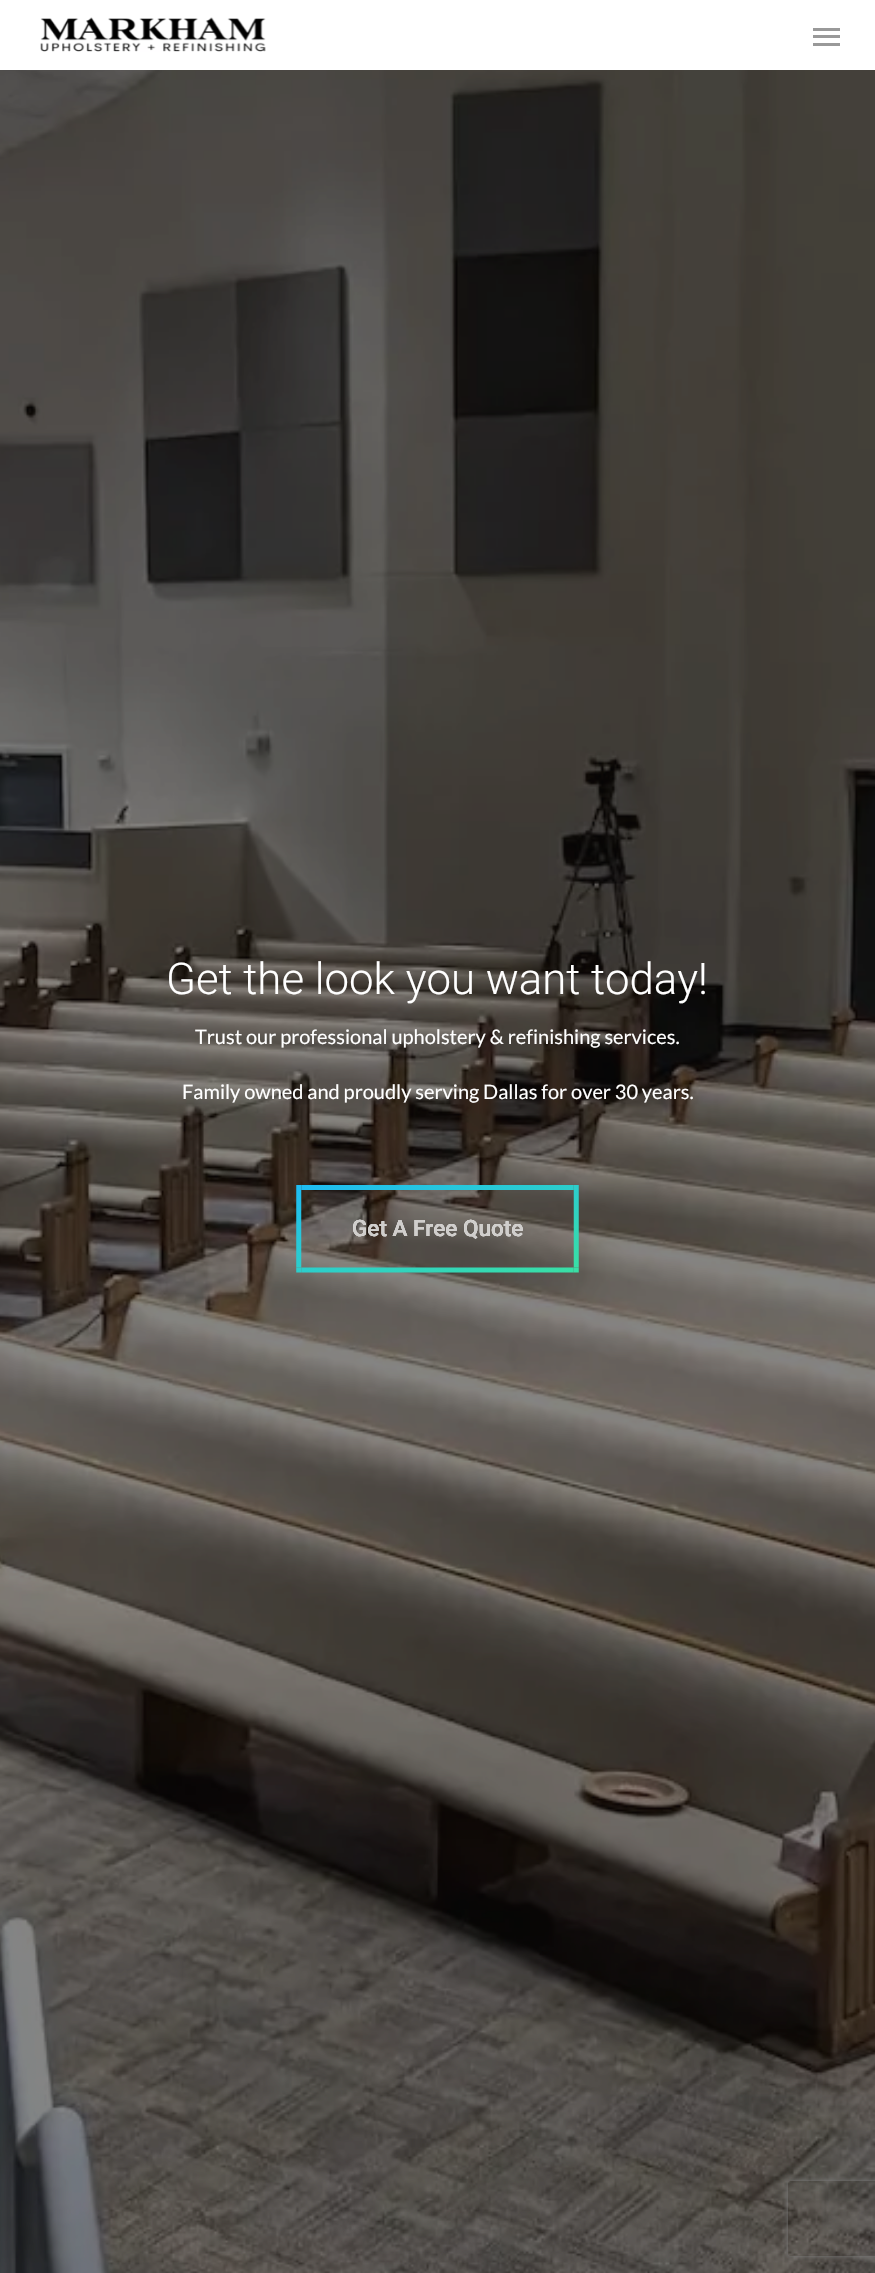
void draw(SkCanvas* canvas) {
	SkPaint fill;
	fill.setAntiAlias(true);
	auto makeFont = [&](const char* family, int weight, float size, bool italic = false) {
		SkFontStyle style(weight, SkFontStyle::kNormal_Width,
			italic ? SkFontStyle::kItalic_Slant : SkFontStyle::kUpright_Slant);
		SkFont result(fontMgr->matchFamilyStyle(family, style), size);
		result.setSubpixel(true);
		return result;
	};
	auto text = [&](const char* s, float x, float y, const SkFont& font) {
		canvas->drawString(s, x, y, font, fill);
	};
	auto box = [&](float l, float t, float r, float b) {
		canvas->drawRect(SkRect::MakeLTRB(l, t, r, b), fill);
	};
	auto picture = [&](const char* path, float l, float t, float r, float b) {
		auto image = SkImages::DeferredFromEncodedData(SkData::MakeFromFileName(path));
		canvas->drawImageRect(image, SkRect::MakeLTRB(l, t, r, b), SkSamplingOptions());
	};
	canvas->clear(0xFFFFFFFF);
	picture("image0.png", 40, 17, 266, 52);
	fill.setColor(0xFF999999);
	box(813, 28, 840, 31);
	box(813, 43, 840, 46);
	box(813, 35, 840, 38);
	picture("image1.png", 0, 70, 875, 2273);
	picture("image2.png", 296, 1185, 579, 1273);
	canvas->save();
	canvas->clipPath(SkPathBuilder(SkPathFillType::kEvenOdd).moveTo(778, 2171).lineTo(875, 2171).lineTo(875, 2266).lineTo(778, 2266).close().moveTo(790.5f, 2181).lineTo(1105.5f, 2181).cubicTo(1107, 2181, 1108, 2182, 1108, 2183.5f).lineTo(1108, 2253.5f).cubicTo(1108, 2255, 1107, 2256, 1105.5f, 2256).lineTo(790.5f, 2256).cubicTo(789, 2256, 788, 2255, 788, 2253.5f).lineTo(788, 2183.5f).cubicTo(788, 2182, 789, 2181, 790.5f, 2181).close().detach(), true);
	fill.setColor(0xFF808080);
	fill.setMaskFilter(SkMaskFilter::MakeBlur(kNormal_SkBlurStyle, 3));
	canvas->drawRoundRect(SkRect::MakeLTRB(788, 2181, 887, 2256), 2.5f, 2.5f, fill);
	fill.setMaskFilter(nullptr);
	canvas->restore();
	auto font1 = makeFont("Roboto", 300, 43.75f);
	fill.setColor(0xFFFFFFFF);
	text("Get the look you want today!", 166, 994, font1);
	auto font2 = makeFont("Lato", 400, 20);
	text("Trust our professional upholstery & refinishing services.", 195, 1044, font2);
	text("Family owned and proudly serving Dallas for over 30 years.", 182, 1099, font2);
	auto font3 = makeFont("Roboto", 500, 22.5f);
	text("Get A Free Quote", 352, 1236, font3);
	fill.setColor(0xFFD0CECC);
	text("Get A Free Quote", 352, 1236, font3);
}
